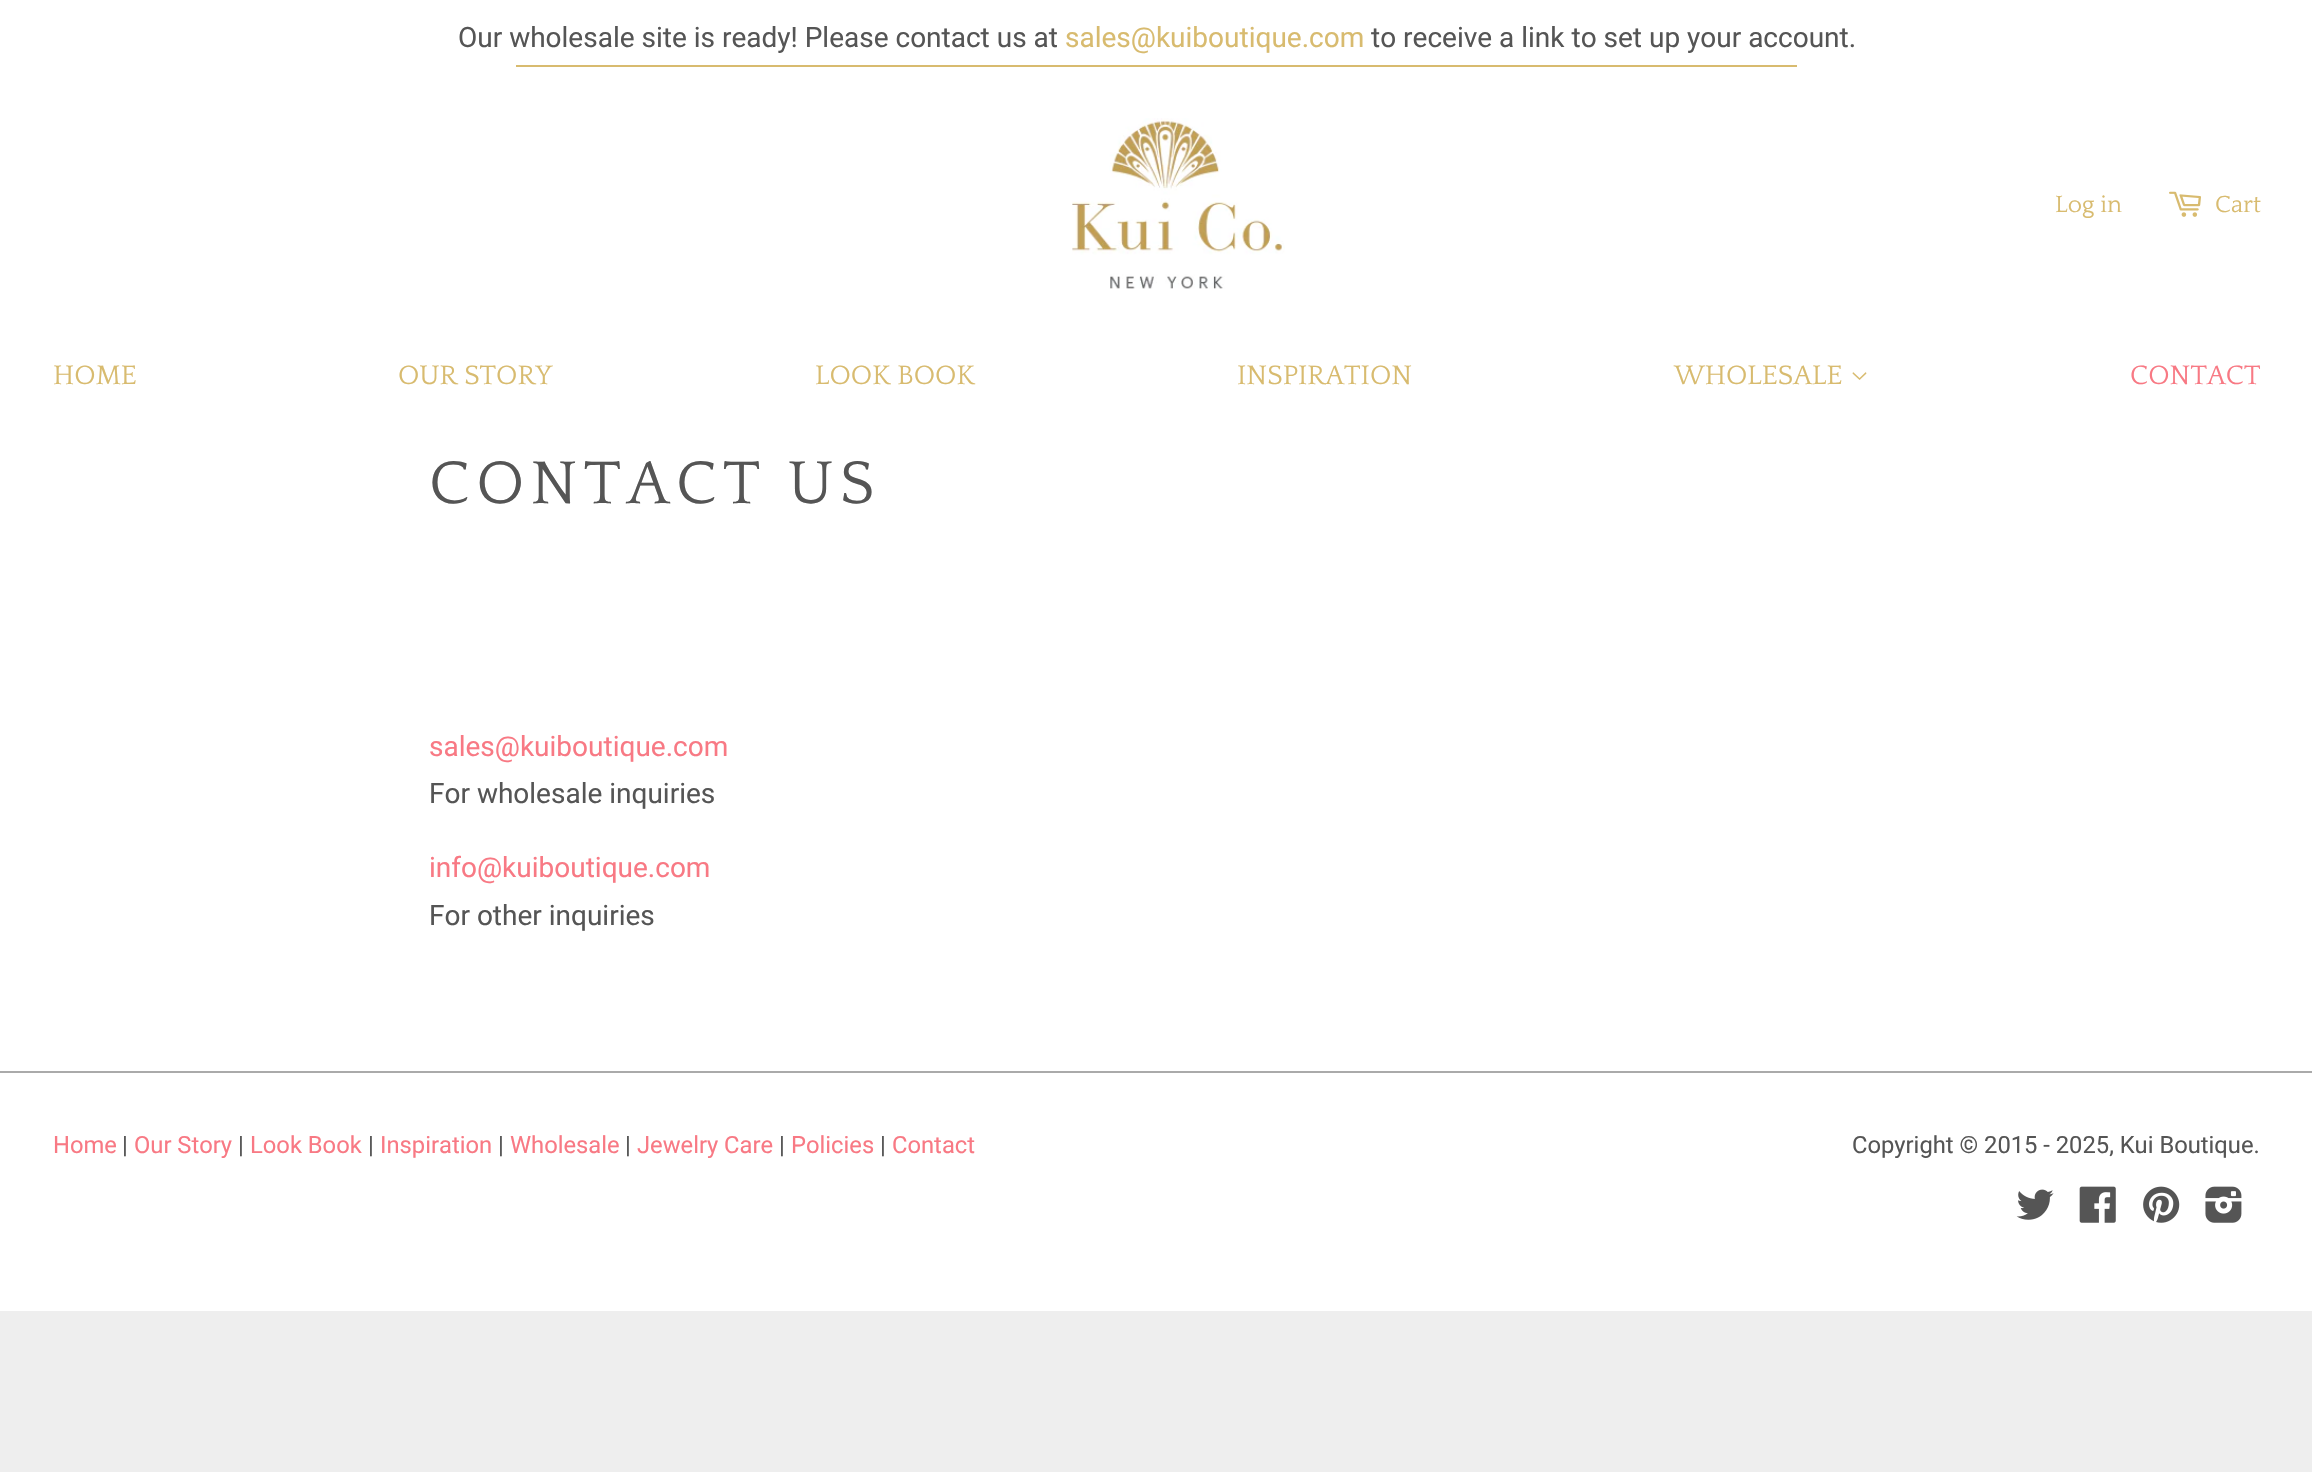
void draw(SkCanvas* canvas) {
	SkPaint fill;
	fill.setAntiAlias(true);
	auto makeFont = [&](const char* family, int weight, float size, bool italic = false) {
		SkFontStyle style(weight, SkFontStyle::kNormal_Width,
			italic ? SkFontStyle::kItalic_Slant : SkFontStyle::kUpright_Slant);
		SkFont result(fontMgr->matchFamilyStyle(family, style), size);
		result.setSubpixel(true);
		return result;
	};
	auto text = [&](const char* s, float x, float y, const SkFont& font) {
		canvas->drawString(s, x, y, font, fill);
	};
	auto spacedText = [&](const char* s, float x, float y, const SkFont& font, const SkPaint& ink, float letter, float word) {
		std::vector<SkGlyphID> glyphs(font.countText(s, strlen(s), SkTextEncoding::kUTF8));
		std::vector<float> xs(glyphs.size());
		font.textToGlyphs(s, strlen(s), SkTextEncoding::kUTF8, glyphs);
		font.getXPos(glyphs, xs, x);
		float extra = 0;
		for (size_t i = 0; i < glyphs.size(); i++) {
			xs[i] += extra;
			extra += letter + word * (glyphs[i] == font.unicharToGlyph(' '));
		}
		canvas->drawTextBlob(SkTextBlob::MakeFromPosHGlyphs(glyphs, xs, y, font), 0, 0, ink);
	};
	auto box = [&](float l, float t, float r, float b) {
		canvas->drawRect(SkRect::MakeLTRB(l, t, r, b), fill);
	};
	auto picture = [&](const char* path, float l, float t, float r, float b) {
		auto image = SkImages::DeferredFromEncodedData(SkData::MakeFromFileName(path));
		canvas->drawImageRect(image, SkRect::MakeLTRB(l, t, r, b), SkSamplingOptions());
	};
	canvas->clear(0xFFEEEEEE);
	fill.setColor(0xFFFFFFFF);
	box(0, 0, 2312, 1311);
	fill.setColor(0xFFD8BB6F);
	box(516, 65, 1797, 67);
	picture("image0.png", 1072, 118, 1285, 289);
	picture("image1.png", 2169, 191, 2201, 217);
	picture("image2.png", 1852, 372, 1867, 380);
	fill.setColor(0xFFAAAAAA);
	box(0, 1071, 2312, 1073);
	picture("image3.png", 2016, 1189, 2054, 1220);
	picture("image4.png", 2079, 1186, 2116, 1223);
	picture("image5.png", 2143, 1186, 2180, 1223);
	picture("image6.png", 2205, 1186, 2242, 1223);
	auto font1 = makeFont("Roboto", 400, 28);
	fill.setColor(0xFF555555);
	text("Our wholesale site is ready! Please contact us at", 458, 47, font1);
	fill.setColor(0xFFD8BB6F);
	text("sales@kuiboutique.com", 1065, 47, font1);
	fill.setColor(0xFF555555);
	text("to receive a link to set up your account.", 1371, 47, font1);
	auto font2 = makeFont("Quattrocento", 400, 24.5f);
	fill.setColor(0xFFD8BB6F);
	text("Log in", 2055, 212, font2);
	text("Cart", 2215, 212, font2);
	auto font3 = makeFont("Quattrocento", 400, 28);
	text("HOME", 53, 384, font3);
	text("OUR STORY", 398, 384, font3);
	text("LOOK BOOK", 815, 384, font3);
	text("INSPIRATION", 1237, 384, font3);
	text("WHOLESALE", 1674, 384, font3);
	fill.setColor(0xFFF87984);
	text("CONTACT", 2130, 384, font3);
	auto font4 = makeFont("Quattrocento", 400, 63);
	fill.setColor(0xFF555555);
	spacedText("CONTACT US", 429, 503, font4, fill, 6.25f, 0);
	fill.setColor(0xFFF87984);
	text("sales@kuiboutique.com", 429, 756, font1);
	fill.setColor(0xFF555555);
	text("For wholesale inquiries", 429, 803, font1);
	fill.setColor(0xFFF87984);
	text("info@kuiboutique.com", 429, 877, font1);
	fill.setColor(0xFF555555);
	text("For other inquiries", 429, 925, font1);
	auto font5 = makeFont("Roboto", 400, 23.75f);
	fill.setColor(0xFFF87984);
	text("Home", 53, 1153, font5);
	fill.setColor(0xFF555555);
	text("|", 122, 1153, font5);
	fill.setColor(0xFFF87984);
	text("Our Story", 134, 1153, font5);
	fill.setColor(0xFF555555);
	text("|", 238, 1153, font5);
	fill.setColor(0xFFF87984);
	text("Look Book", 250, 1153, font5);
	fill.setColor(0xFF555555);
	text("|", 368, 1153, font5);
	fill.setColor(0xFFF87984);
	text("Inspiration", 380, 1153, font5);
	fill.setColor(0xFF555555);
	text("|", 498, 1153, font5);
	fill.setColor(0xFFF87984);
	text("Wholesale", 510, 1153, font5);
	fill.setColor(0xFF555555);
	text("|", 625, 1153, font5);
	fill.setColor(0xFFF87984);
	text("Jewelry Care", 637, 1153, font5);
	fill.setColor(0xFF555555);
	text("|", 779, 1153, font5);
	fill.setColor(0xFFF87984);
	text("Policies", 791, 1153, font5);
	fill.setColor(0xFF555555);
	text("|", 880, 1153, font5);
	fill.setColor(0xFFF87984);
	text("Contact", 892, 1153, font5);
	fill.setColor(0xFF555555);
	text("Copyright © 2015 - 2025, Kui Boutique.", 1852, 1153, font5);
}
